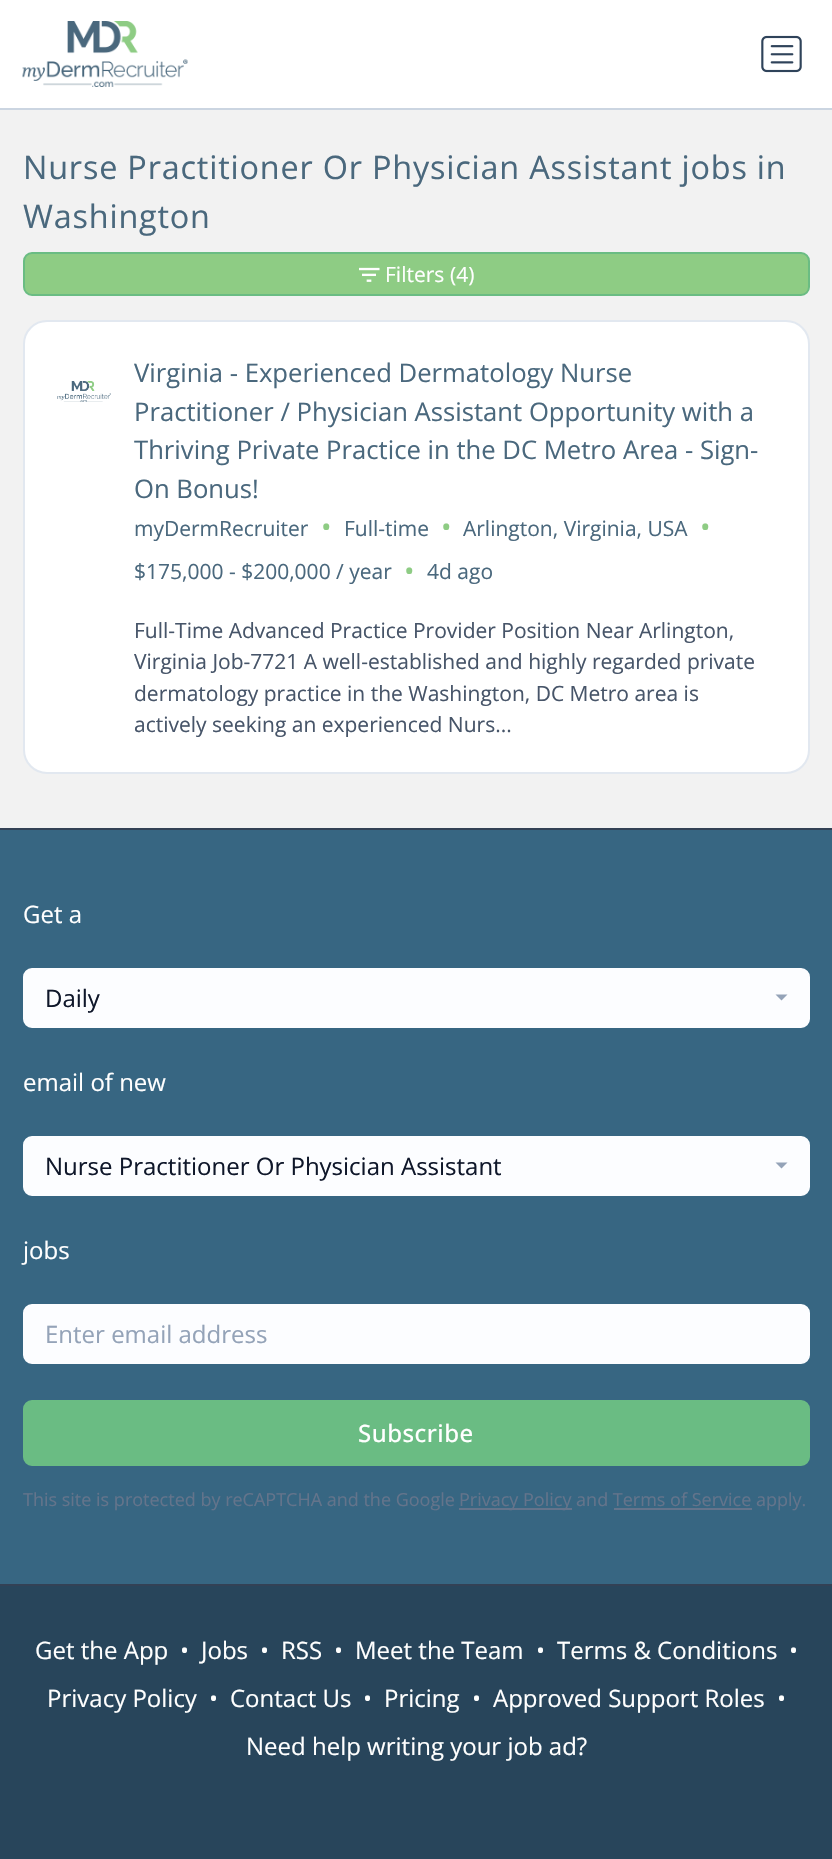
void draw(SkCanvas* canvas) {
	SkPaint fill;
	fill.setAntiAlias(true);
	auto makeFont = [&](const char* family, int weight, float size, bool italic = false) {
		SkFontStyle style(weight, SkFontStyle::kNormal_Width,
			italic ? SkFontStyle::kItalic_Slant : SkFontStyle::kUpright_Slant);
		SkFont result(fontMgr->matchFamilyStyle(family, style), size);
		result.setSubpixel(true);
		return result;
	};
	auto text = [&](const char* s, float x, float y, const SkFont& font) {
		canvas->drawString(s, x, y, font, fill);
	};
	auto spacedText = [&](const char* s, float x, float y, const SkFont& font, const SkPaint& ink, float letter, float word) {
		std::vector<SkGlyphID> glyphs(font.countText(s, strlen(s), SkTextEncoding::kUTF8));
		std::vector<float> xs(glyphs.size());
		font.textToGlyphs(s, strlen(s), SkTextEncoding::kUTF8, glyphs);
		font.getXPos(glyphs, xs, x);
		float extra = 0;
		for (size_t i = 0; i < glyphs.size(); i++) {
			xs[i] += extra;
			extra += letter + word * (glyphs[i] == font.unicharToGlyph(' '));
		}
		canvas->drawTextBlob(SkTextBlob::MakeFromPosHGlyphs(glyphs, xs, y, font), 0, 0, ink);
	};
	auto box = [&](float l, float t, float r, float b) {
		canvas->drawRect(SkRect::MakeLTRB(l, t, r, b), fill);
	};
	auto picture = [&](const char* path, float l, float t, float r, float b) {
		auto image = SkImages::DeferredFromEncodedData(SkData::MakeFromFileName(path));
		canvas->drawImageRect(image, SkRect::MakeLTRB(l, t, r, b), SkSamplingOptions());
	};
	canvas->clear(0xFFF2F2F2);
	fill.setColor(0xFFFFFFFF);
	box(0, 0, 832, 108);
	fill.setColor(0xFFCBD5E1);
	box(0, 108, 832, 110);
	picture("image0.png", 22, 21, 188, 87);
	picture("image1.png", 761, 35, 802, 73);
	fill.setColor(0xFF8ECC84);
	canvas->drawRoundRect(SkRect::MakeLTRB(24, 253, 809, 295), 8, 8, fill);
	fill.setStyle(SkPaint::kStroke_Style);
	fill.setStrokeWidth(2);
	fill.setColor(0xFF6ABC83);
	canvas->drawRoundRect(SkRect::MakeLTRB(24, 253, 809, 295), 8, 8, fill);
	picture("image2.png", 359, 267, 380, 282);
	fill.setStyle(SkPaint::kFill_Style);
	fill.setColor(0xFFFFFFFF);
	canvas->drawRoundRect(SkRect::MakeLTRB(24, 321, 809, 773), 23, 23, fill);
	fill.setStyle(SkPaint::kStroke_Style);
	fill.setColor(0xFFE2E8F0);
	canvas->drawRoundRect(SkRect::MakeLTRB(24, 321, 809, 773), 23, 23, fill);
	picture("image3.png", 57, 381, 111, 402);
	fill.setStyle(SkPaint::kFill_Style);
	fill.setColor(0xFF376682);
	box(0, 830, 832, 1584);
	fill.setColor(0xFF334155);
	box(0, 828, 832, 830);
	box(0, 1584, 832, 1586);
	fill.setColor(0xFFFCFDFF);
	canvas->drawRoundRect(SkRect::MakeLTRB(24, 969, 809, 1027), 8, 8, fill);
	fill.setStyle(SkPaint::kStroke_Style);
	canvas->drawRoundRect(SkRect::MakeLTRB(24, 969, 809, 1027), 8, 8, fill);
	fill.setStyle(SkPaint::kFill_Style);
	fill.setColor(0xFF94A3B8);
	canvas->drawPath(SkPathBuilder().moveTo(775.5f, 994.5f).lineTo(787.5f, 994.5f).lineTo(781.5f, 1000.5f).close().detach(), fill);
	fill.setColor(0xFFFCFDFF);
	canvas->drawRoundRect(SkRect::MakeLTRB(24, 1137, 809, 1195), 8, 8, fill);
	fill.setStyle(SkPaint::kStroke_Style);
	canvas->drawRoundRect(SkRect::MakeLTRB(24, 1137, 809, 1195), 8, 8, fill);
	fill.setStyle(SkPaint::kFill_Style);
	fill.setColor(0xFF94A3B8);
	canvas->drawPath(SkPathBuilder().moveTo(775.5f, 1162.5f).lineTo(787.5f, 1162.5f).lineTo(781.5f, 1168.5f).close().detach(), fill);
	fill.setColor(0xFFFCFDFF);
	canvas->drawRoundRect(SkRect::MakeLTRB(24, 1305, 809, 1363), 8, 8, fill);
	fill.setStyle(SkPaint::kStroke_Style);
	canvas->drawRoundRect(SkRect::MakeLTRB(24, 1305, 809, 1363), 8, 8, fill);
	fill.setStyle(SkPaint::kFill_Style);
	fill.setColor(0xFF6ABC83);
	canvas->drawRoundRect(SkRect::MakeLTRB(24, 1401, 809, 1465), 8, 8, fill);
	fill.setStyle(SkPaint::kStroke_Style);
	canvas->drawRoundRect(SkRect::MakeLTRB(24, 1401, 809, 1465), 8, 8, fill);
	fill.setStyle(SkPaint::kFill_Style);
	fill.setColor(0xFF64748B);
	box(459, 1508, 572, 1510);
	box(614, 1508, 752, 1510);
	fill.setColor(0xFF28455B);
	box(0, 1586, 832, 1859);
	auto font1 = makeFont("Open Sans", 400, 32.4f);
	fill.setColor(0xFF4A687D);
	spacedText("Nurse Practitioner Or Physician Assistant jobs in", 23, 179, font1, fill, 0.8f, 0);
	spacedText("Washington", 23, 228, font1, fill, 0.8f, 0);
	auto font2 = makeFont("Open Sans", 400, 21);
	fill.setColor(0xFFFFFFFF);
	text("Filters", 385, 282, font2);
	text("(4)", 450, 282, font2);
	auto font3 = makeFont("Open Sans", 400, 25.65f);
	fill.setColor(0xFF4A687D);
	text("Virginia - Experienced Dermatology Nurse", 134, 382, font3);
	text("Practitioner / Physician Assistant Opportunity with a", 134, 421, font3);
	text("Thriving Private Practice in the DC Metro Area - Sign-", 134, 459, font3);
	text("On Bonus!", 134, 498, font3);
	text("myDermRecruiter", 134, 536, font2);
	auto font4 = makeFont("Open Sans", 400, 28);
	fill.setColor(0xFF8ECC84);
	text("•", 321, 537, font4);
	fill.setColor(0xFF4A687D);
	text("Full-time", 344, 536, font2);
	fill.setColor(0xFF8ECC84);
	text("•", 441, 537, font4);
	fill.setColor(0xFF4A687D);
	text("Arlington, Virginia, USA", 463, 536, font2);
	fill.setColor(0xFF8ECC84);
	text("•", 700, 537, font4);
	fill.setColor(0xFF4A687D);
	text("$175,000 - $200,000 / year", 134, 579, font2);
	fill.setColor(0xFF8ECC84);
	text("•", 404, 581, font4);
	fill.setColor(0xFF4A687D);
	text("4d ago", 427, 579, font2);
	fill.setColor(0xFF475569);
	text("Full-Time Advanced Practice Provider Position Near Arlington,", 134, 638, font2);
	text("Virginia Job-7721 A well-established and highly regarded private", 134, 669, font2);
	text("dermatology practice in the Washington, DC Metro area is", 134, 701, font2);
	text("actively seeking an experienced Nurs...", 134, 732, font2);
	auto font5 = makeFont("Open Sans", 400, 24);
	fill.setColor(0xFFFFFFFF);
	text("Get a", 23, 923, font5);
	fill.setColor(0xFF0F172A);
	text("Daily", 45, 1007, font5);
	fill.setColor(0xFFFFFFFF);
	text("email of new", 23, 1091, font5);
	fill.setColor(0xFF0F172A);
	text("Nurse Practitioner Or Physician Assistant", 45, 1175, font5);
	fill.setColor(0xFFFFFFFF);
	text("jobs", 23, 1259, font5);
	fill.setColor(0xFF94A3B8);
	text("Enter email address", 45, 1343, font5);
	auto font6 = makeFont("Open Sans", 500, 24);
	fill.setColor(0xFFFFFFFF);
	spacedText("Subscribe", 358, 1442, font6, fill, 0.5f, 0);
	auto font7 = makeFont("Open Sans", 400, 18);
	fill.setColor(0xFF64748B);
	text("This site is protected by reCAPTCHA and the Google", 23, 1506, font7);
	text("Privacy Policy and Terms of Service apply.", 459, 1506, font7);
	fill.setColor(0xFFFFFFFF);
	text("Get the App", 35, 1659, font5);
	text("•", 180, 1659, font5);
	text("Jobs", 201, 1659, font5);
	text("•", 260, 1659, font5);
	text("RSS", 281, 1659, font5);
	text("•", 334, 1659, font5);
	text("Meet the Team", 355, 1659, font5);
	text("•", 536, 1659, font5);
	text("Terms & Conditions", 557, 1659, font5);
	text("•", 789, 1659, font5);
	text("Privacy Policy", 47, 1707, font5);
	text("•", 209, 1707, font5);
	text("Contact Us", 230, 1707, font5);
	text("•", 363, 1707, font5);
	text("Pricing", 384, 1707, font5);
	text("•", 472, 1707, font5);
	text("Approved Support Roles", 493, 1707, font5);
	text("•", 777, 1707, font5);
	text("Need help writing your job ad?", 246, 1755, font5);
}
